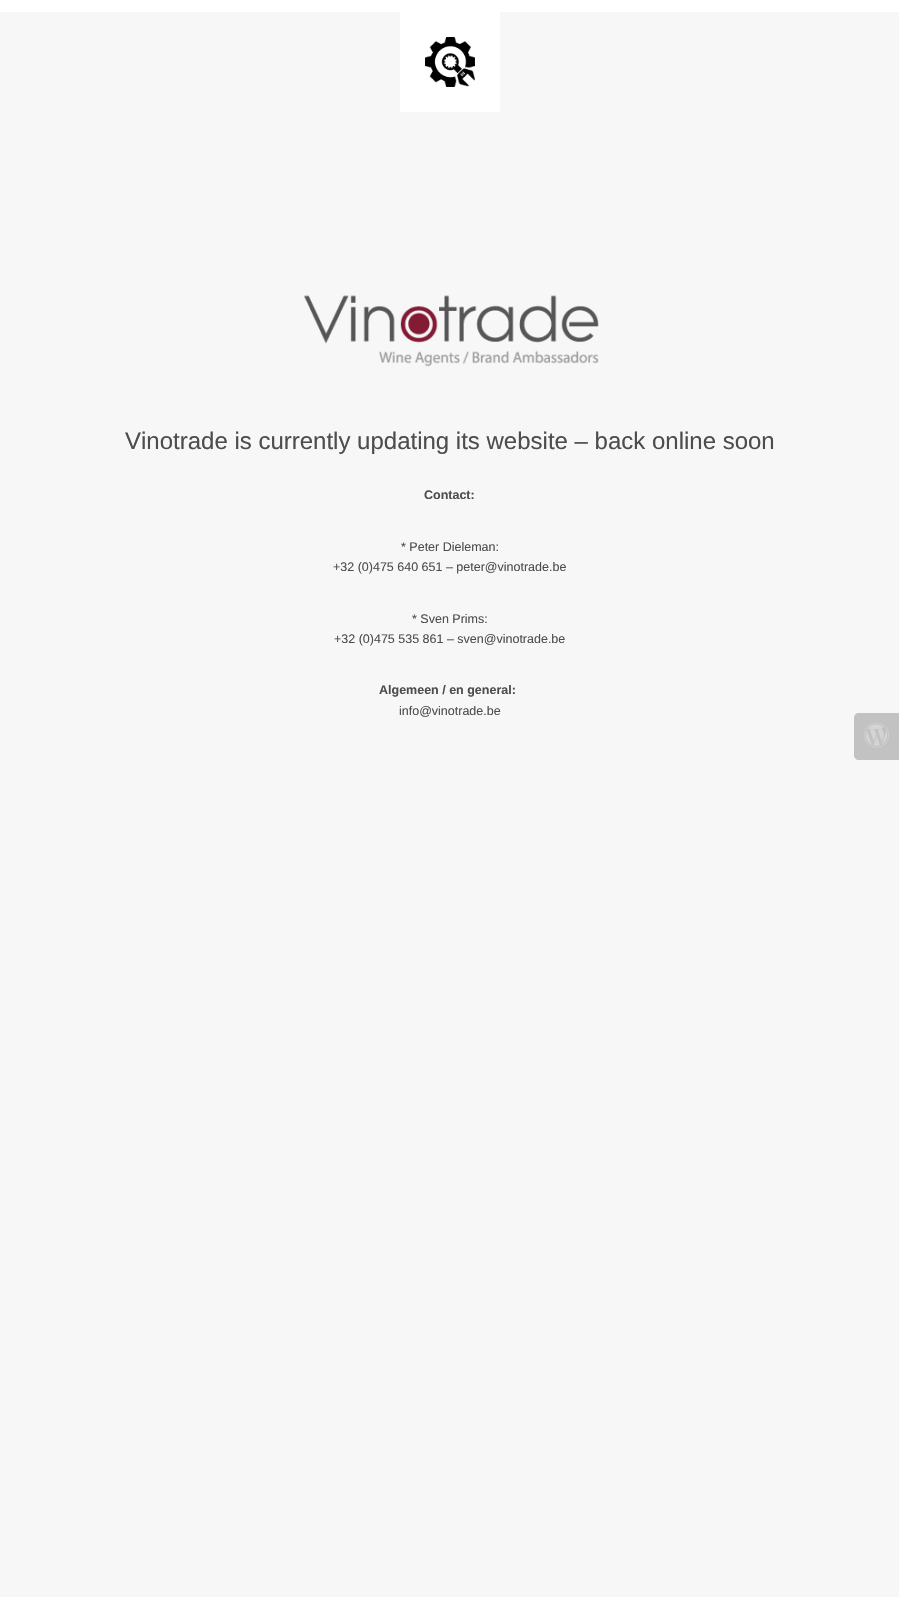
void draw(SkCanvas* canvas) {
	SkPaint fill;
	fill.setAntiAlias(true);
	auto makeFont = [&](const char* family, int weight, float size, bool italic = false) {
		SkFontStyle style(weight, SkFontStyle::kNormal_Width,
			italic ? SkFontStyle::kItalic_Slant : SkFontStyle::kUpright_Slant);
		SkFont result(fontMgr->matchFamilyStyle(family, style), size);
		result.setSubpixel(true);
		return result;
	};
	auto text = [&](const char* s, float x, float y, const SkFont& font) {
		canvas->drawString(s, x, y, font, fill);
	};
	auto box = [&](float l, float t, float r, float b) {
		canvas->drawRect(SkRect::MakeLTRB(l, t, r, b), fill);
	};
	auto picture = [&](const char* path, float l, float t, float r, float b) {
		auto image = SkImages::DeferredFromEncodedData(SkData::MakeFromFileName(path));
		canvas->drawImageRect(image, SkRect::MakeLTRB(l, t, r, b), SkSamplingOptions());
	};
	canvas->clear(0xFFF7F7F7);
	fill.setColor(0xFFFFFFFF);
	box(0, 0, 899, 12);
	box(400, 12, 500, 112);
	picture("image0.png", 425, 37, 475, 87);
	picture("image1.png", 303, 295, 599, 367);
	fill.setColor(0xFFC2C2C2);
	canvas->drawPath(SkPathBuilder().moveTo(859, 713).lineTo(899, 713).lineTo(899, 760).lineTo(859, 760).cubicTo(856, 760, 854, 758, 854, 755).lineTo(854, 718).cubicTo(854, 715, 856, 713, 859, 713).close().detach(), fill);
	picture("image2.png", 864, 722, 889, 748);
	auto font1 = makeFont("Liberation Sans", 400, 24);
	fill.setColor(0xFF4D4D4D);
	text("Vinotrade is currently updating its website – back online soon", 125, 449, font1);
	auto font2 = makeFont("Liberation Sans", 700, 12.5f);
	text("Contact:", 424, 499, font2);
	auto font3 = makeFont("Liberation Sans", 400, 12.5f);
	text("* Peter Dieleman:", 401, 551, font3);
	text("+32 (0)475 640 651 – peter@vinotrade.be", 333, 571, font3);
	text("* Sven Prims:", 412, 623, font3);
	text("+32 (0)475 535 861 – sven@vinotrade.be", 334, 643, font3);
	text("Algemeen / en general:", 379, 694, font2);
	text("info@vinotrade.be", 399, 715, font3);
}
